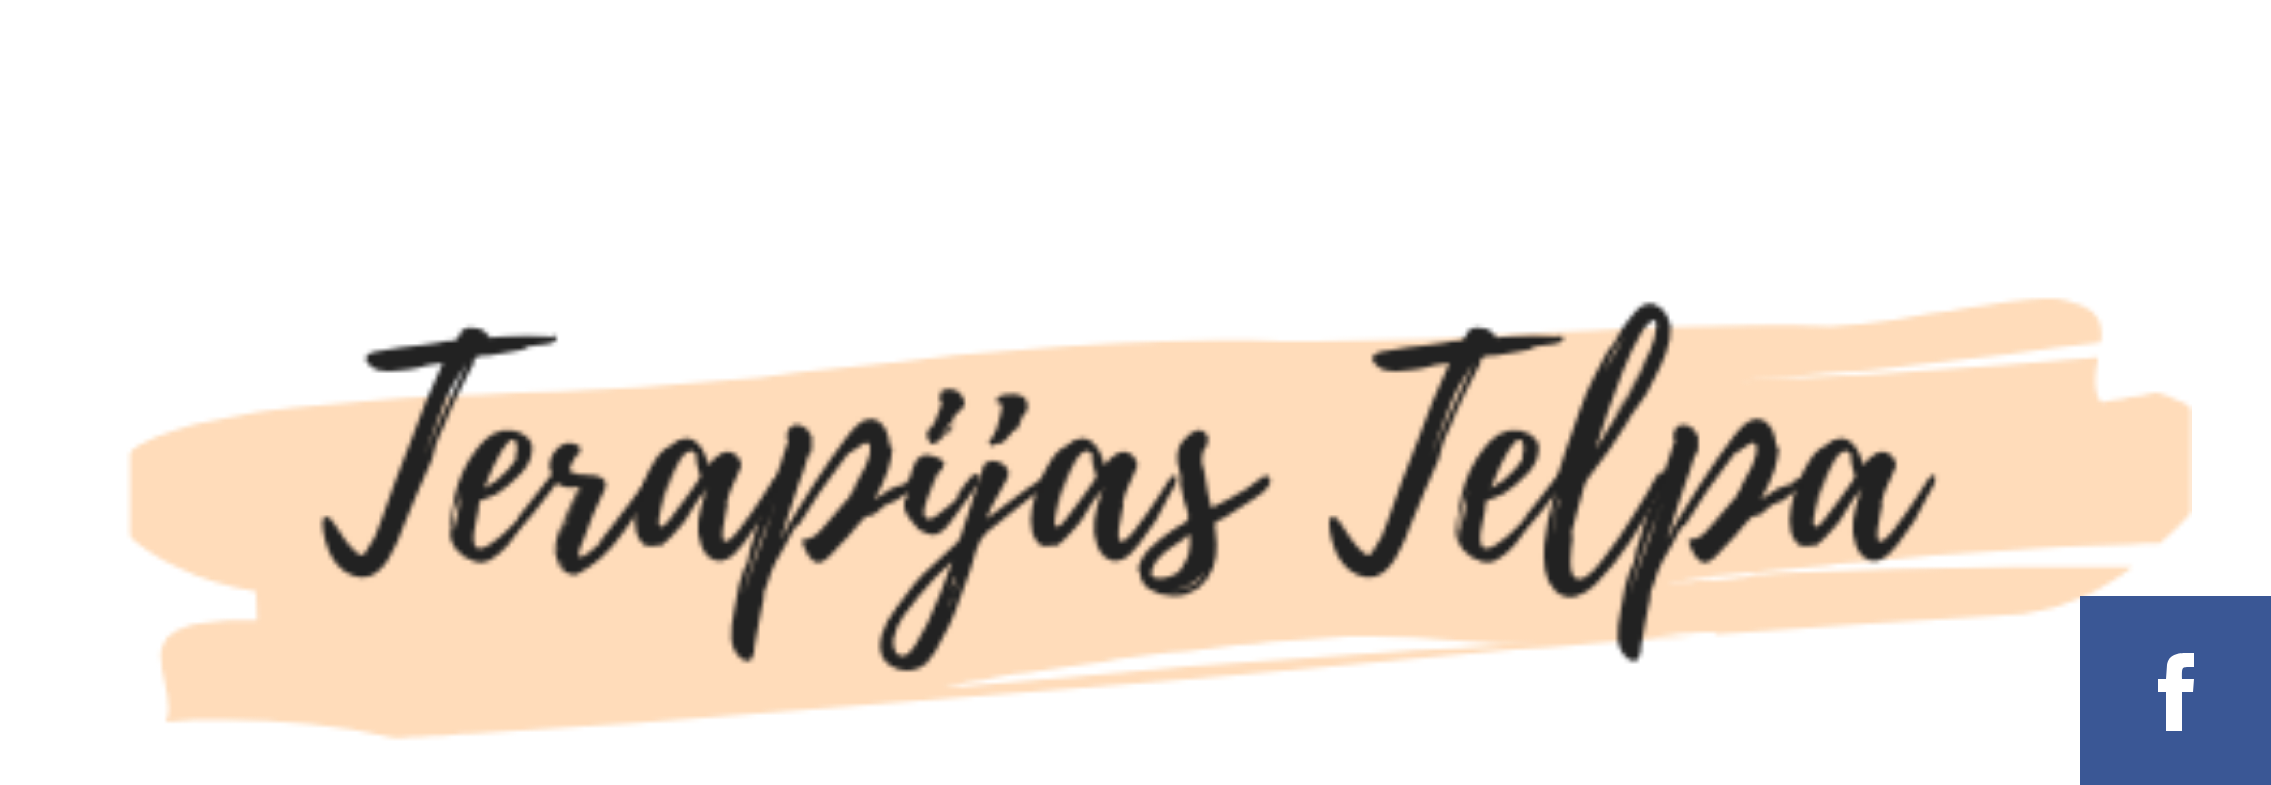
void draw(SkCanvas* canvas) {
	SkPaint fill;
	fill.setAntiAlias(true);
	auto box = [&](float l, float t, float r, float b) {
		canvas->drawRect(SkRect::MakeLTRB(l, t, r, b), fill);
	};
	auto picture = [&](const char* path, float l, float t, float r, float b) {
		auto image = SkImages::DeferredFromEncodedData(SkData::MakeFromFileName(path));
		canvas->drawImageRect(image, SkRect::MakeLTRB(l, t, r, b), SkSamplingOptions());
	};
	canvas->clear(0xFFFFFFFF);
	picture("image0.png", 126, 297, 2192, 741);
	fill.setColor(0xFF3A5795);
	box(2080, 596, 2271, 785);
	fill.setColor(0xFFFFFFFF);
	canvas->drawPath(SkPathBuilder().moveTo(2166, 679).lineTo(2158, 679).lineTo(2158, 692).lineTo(2166, 692).lineTo(2166, 731).lineTo(2182, 731).lineTo(2182, 692).lineTo(2193, 692).lineTo(2194, 679).lineTo(2182, 679).cubicTo(2182, 666, 2181, 667, 2194, 667).lineTo(2194, 653).cubicTo(2184, 653, 2169, 651, 2167, 665).close().detach(), fill);
}
